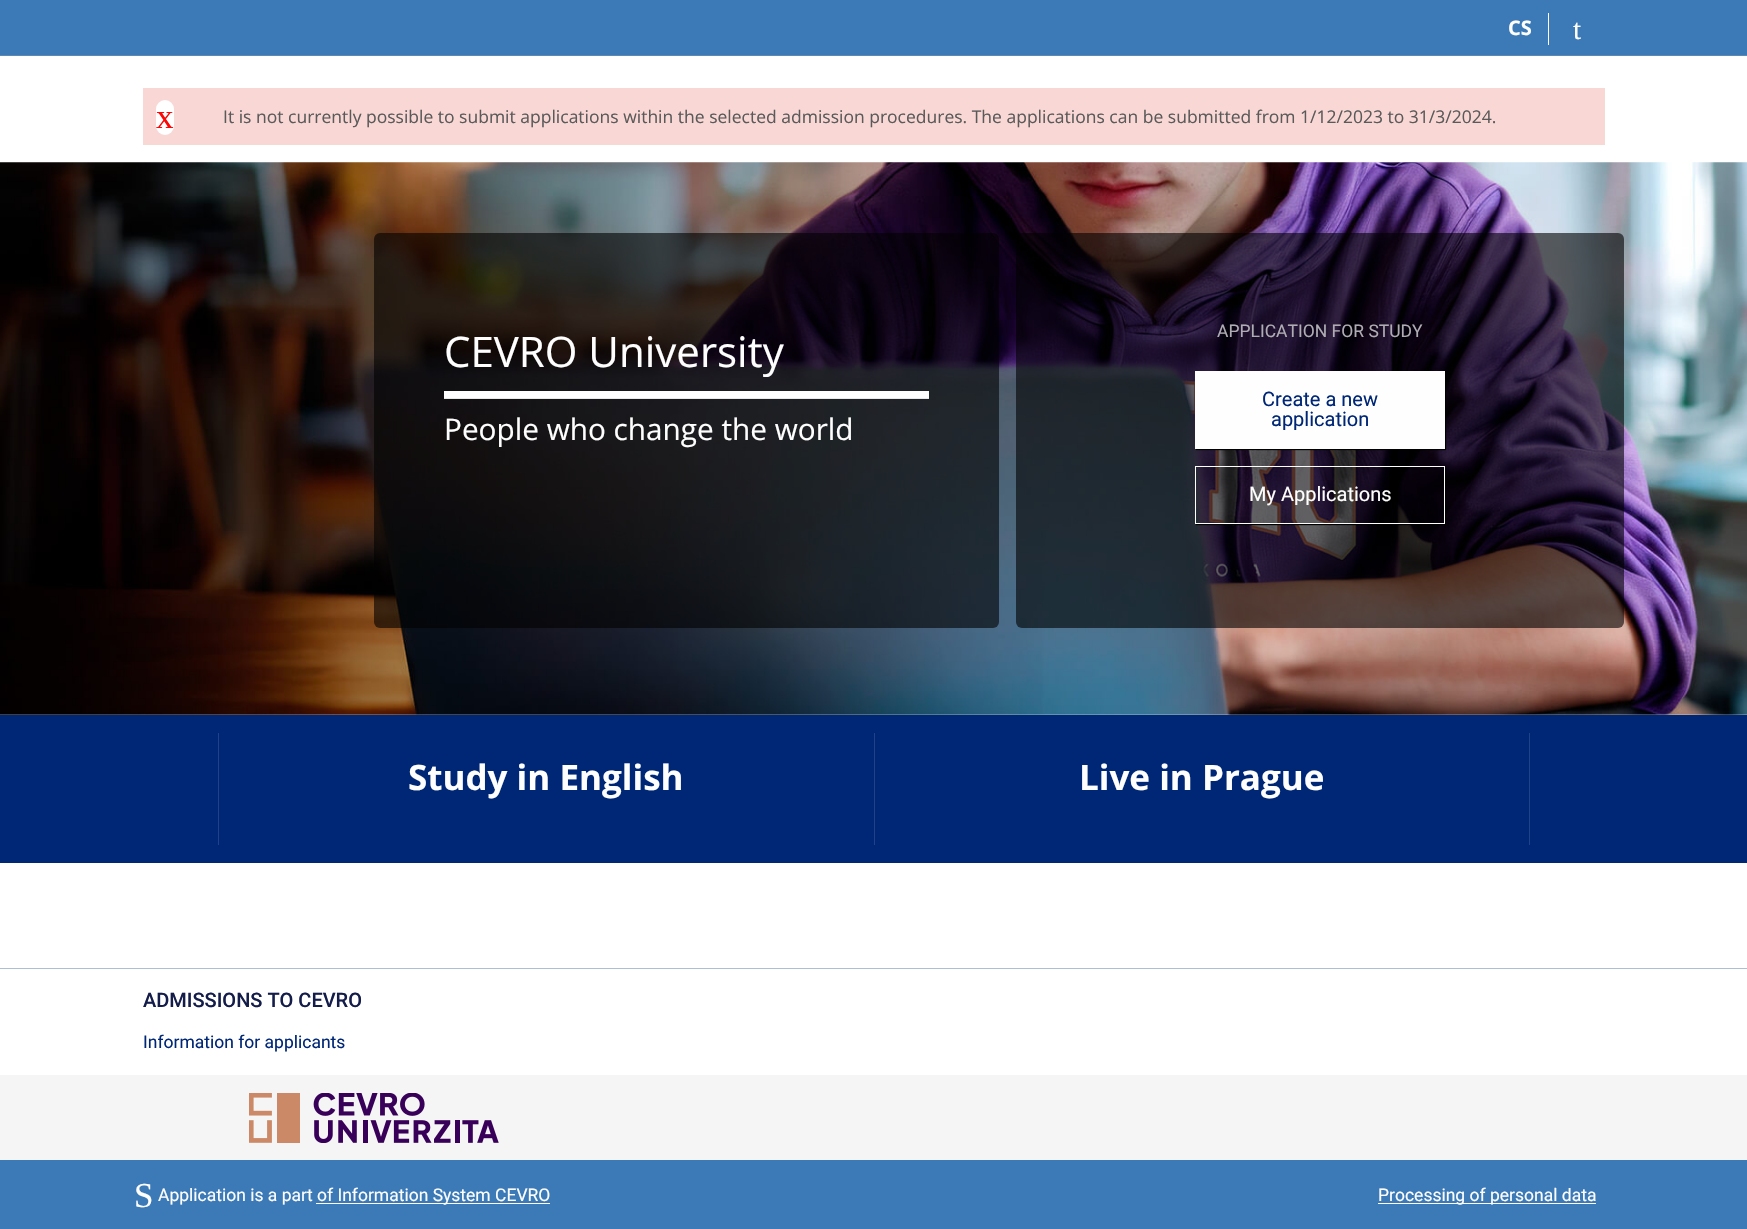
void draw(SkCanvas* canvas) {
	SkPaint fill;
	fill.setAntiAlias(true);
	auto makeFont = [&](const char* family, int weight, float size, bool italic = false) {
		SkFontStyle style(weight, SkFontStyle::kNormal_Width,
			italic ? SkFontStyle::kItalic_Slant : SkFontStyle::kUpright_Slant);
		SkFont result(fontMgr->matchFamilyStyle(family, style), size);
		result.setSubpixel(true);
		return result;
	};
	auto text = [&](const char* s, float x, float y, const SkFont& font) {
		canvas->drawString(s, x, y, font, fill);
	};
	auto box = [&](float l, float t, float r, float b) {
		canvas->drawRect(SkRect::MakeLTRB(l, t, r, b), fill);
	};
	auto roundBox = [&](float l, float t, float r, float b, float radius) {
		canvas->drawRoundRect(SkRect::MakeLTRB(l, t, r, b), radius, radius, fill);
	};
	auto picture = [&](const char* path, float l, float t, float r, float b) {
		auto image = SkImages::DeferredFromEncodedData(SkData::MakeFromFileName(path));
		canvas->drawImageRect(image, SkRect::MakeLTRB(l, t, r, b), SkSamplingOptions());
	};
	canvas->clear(0xFFFFFFFF);
	fill.setColor(0xFF3C7AB7);
	box(0, 0, 1747, 55);
	fill.setColor(0xFF5C88B6);
	box(0, 55, 1747, 56);
	fill.setColor(0xFFFFFFFF);
	box(1548, 13, 1549, 45);
	fill.setColor(0xFFF9D7D4);
	box(143, 88, 1605, 145);
	fill.setColor(0xFFFFFFFF);
	roundBox(156, 100, 174, 135, 9);
	picture("image0.png", 0, 162, 1747, 715);
	fill.setColor(0x99000000);
	roundBox(374, 233, 999, 628, 6);
	fill.setColor(0xFFFFFFFF);
	box(444, 391, 929, 398);
	fill.setColor(0xFFEAEAEA);
	box(444, 398, 929, 399);
	fill.setColor(0x99000000);
	roundBox(1016, 233, 1624, 628, 6);
	fill.setColor(0xFF000000);
	fill.setMaskFilter(SkMaskFilter::MakeBlur(kNormal_SkBlurStyle, 0.5f));
	canvas->drawRect(SkRect::MakeLTRB(1196, 373, 1446, 450), fill);
	fill.setMaskFilter(nullptr);
	fill.setColor(0xFFFEFEFE);
	box(1195, 371, 1445, 449);
	canvas->save();
	canvas->clipPath(SkPathBuilder(SkPathFillType::kEvenOdd).moveTo(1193, 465).lineTo(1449, 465).lineTo(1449, 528).lineTo(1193, 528).close().moveTo(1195, 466).lineTo(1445, 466).lineTo(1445, 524).lineTo(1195, 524).close().detach(), true);
	fill.setColor(0xFF000000);
	fill.setMaskFilter(SkMaskFilter::MakeBlur(kNormal_SkBlurStyle, 0.5f));
	canvas->drawRect(SkRect::MakeLTRB(1196, 468, 1446, 525), fill);
	fill.setMaskFilter(nullptr);
	canvas->restore();
	fill.setStyle(SkPaint::kStroke_Style);
	fill.setStrokeWidth(1);
	fill.setColor(0xFFFEFEFE);
	canvas->drawRect(SkRect::MakeLTRB(1195.5f, 466.5f, 1444.5f, 523.5f), fill);
	fill.setStyle(SkPaint::kFill_Style);
	fill.setColor(0xFF002776);
	box(0, 715, 1747, 863);
	fill.setColor(0xFF204287);
	box(218, 733, 219, 845);
	box(1529, 733, 1530, 845);
	box(874, 733, 875, 845);
	fill.setColor(0xFFAFBDD5);
	box(0, 968, 1747, 969);
	fill.setColor(0xFFF5F5F5);
	box(0, 1075, 1747, 1160);
	picture("image1.png", 249, 1093, 499, 1143);
	fill.setColor(0xFF3C7AB7);
	box(0, 1160, 1747, 1229);
	fill.setColor(0xFFFFFFFF);
	box(316, 1203, 550, 1204);
	box(1378, 1203, 1596, 1204);
	auto font1 = makeFont("Open Sans", 700, 20);
	fill.setColor(0xFFFEFEFE);
	text("CS", 1508, 35, font1);
	auto font2 = makeFont("Liberation Serif", 400, 29);
	text("t", 1573, 39, font2);
	auto font3 = makeFont("Liberation Serif", 400, 35);
	fill.setColor(0xFFFC0606);
	text("x", 156, 128, font3);
	auto font4 = makeFont("Open Sans", 400, 17.5f);
	fill.setColor(0xFF5A5A5A);
	text("It is not currently possible to submit applications within the selected admission procedures. The applications can be submitted from 1/12/2023 to 31/3/2024.", 223, 123, font4);
	auto font5 = makeFont("Open Sans", 400, 42);
	fill.setColor(0xFFFEFEFE);
	text("CEVRO University", 444, 367, font5);
	auto font6 = makeFont("Open Sans", 400, 29.75f);
	text("People who change the world", 444, 440, font6);
	auto font7 = makeFont("Roboto", 400, 17.5f);
	fill.setColor(0xFFAFACB3);
	text("APPLICATION FOR STUDY", 1217, 337, font7);
	auto font8 = makeFont("Roboto", 400, 20);
	fill.setColor(0xFF002776);
	text("Create a new", 1262, 406, font8);
	text("application", 1271, 426, font8);
	fill.setColor(0xFFFEFEFE);
	text("My Applications", 1249, 501, font8);
	auto font9 = makeFont("Open Sans", 700, 35);
	text("Study in English", 408, 790, font9);
	text("Live in Prague", 1079, 790, font9);
	auto font10 = makeFont("Roboto", 500, 20);
	fill.setColor(0xFF141C4A);
	text("ADMISSIONS TO CEVRO", 143, 1007, font10);
	fill.setColor(0xFF002776);
	text("Information for applicants", 143, 1048, font7);
	fill.setColor(0xFFFEFEFE);
	text("S", 134, 1207, font3);
	text("Application is a part", 158, 1201, font7);
	text("of Information System CEVRO", 317, 1201, font7);
	text("Processing of personal data", 1378, 1201, font7);
}
